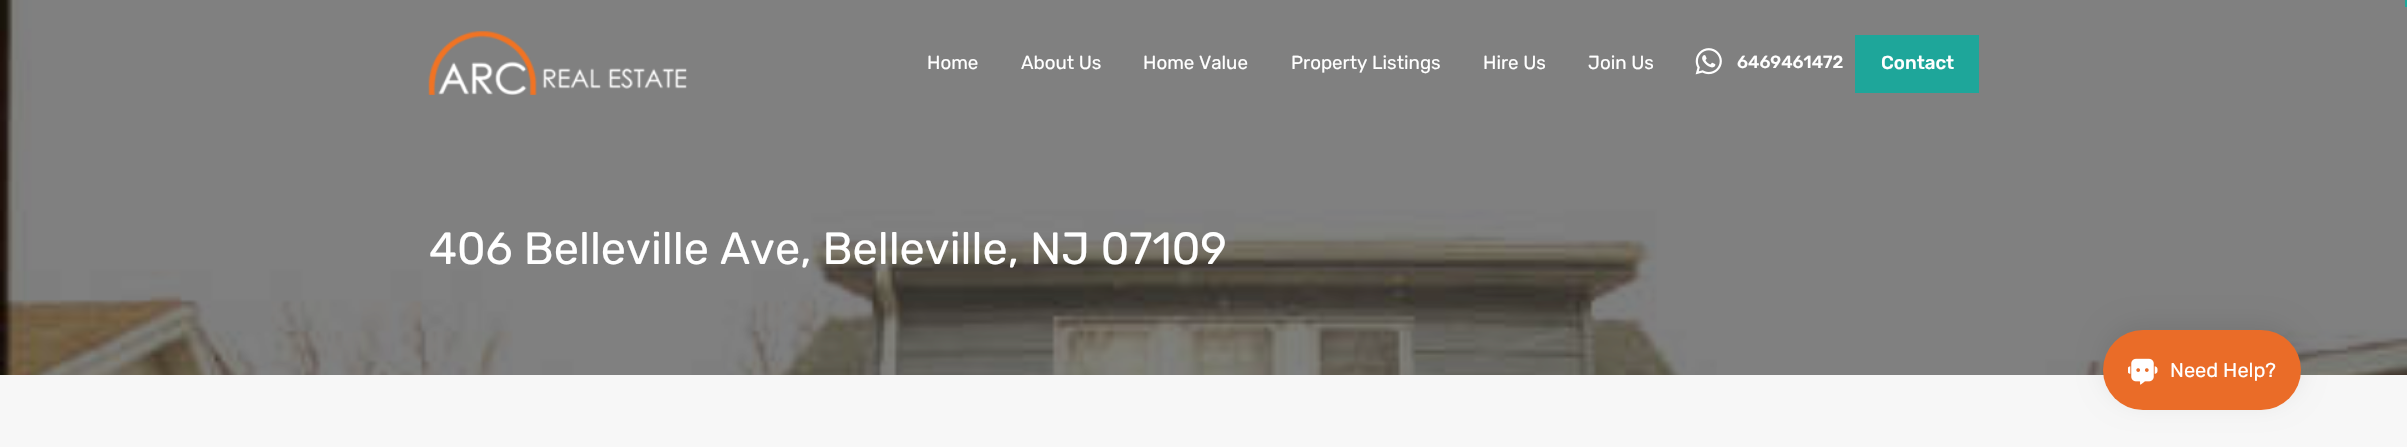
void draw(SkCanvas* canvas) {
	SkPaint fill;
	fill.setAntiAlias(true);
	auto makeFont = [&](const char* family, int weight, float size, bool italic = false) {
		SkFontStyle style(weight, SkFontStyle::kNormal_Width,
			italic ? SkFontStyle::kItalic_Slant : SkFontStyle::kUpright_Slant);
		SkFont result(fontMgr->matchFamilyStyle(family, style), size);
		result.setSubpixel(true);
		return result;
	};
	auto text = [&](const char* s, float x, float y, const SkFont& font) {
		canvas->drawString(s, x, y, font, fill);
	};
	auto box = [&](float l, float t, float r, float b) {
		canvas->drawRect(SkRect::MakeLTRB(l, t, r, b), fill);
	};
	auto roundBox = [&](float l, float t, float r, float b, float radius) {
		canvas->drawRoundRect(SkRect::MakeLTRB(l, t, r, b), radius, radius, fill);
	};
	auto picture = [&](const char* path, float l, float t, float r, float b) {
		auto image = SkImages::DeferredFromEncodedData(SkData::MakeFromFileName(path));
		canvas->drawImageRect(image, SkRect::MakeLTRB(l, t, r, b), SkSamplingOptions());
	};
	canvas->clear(0xFFF7F7F7);
	picture("image2.png", 0, 0, 2407, 375);
	fill.setStyle(SkPaint::kStroke_Style);
	fill.setStrokeWidth(7.2f);
	fill.setColor(0xFF1EA69A);
	canvas->drawPath(SkPathBuilder().moveTo(2405, 3.5f).lineTo(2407.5f, 3.5f).detach(), fill);
	picture("image0.png", 428, 31, 687, 95);
	picture("image1.png", 1695, 48, 1722, 75);
	fill.setStyle(SkPaint::kFill_Style);
	box(1855, 35, 1979, 93);
	fill.setColor(0x14000000);
	fill.setMaskFilter(SkMaskFilter::MakeBlur(kNormal_SkBlurStyle, 12.5f));
	canvas->drawRoundRect(SkRect::MakeLTRB(2103, 324, 2301, 404), 40, 40, fill);
	fill.setMaskFilter(nullptr);
	fill.setColor(0xFFEA6C28);
	roundBox(2103, 330, 2301, 410, 40);
	picture("image3.png", 2128, 358, 2158, 385);
	auto font1 = makeFont("Rubik", 400, 18.75f);
	fill.setColor(0xFFFFFFFF);
	text("Home", 927, 69, font1);
	text("About Us", 1021, 69, font1);
	text("Home Value", 1143, 69, font1);
	text("Property Listings", 1291, 69, font1);
	text("Hire Us", 1483, 69, font1);
	text("Join Us", 1588, 69, font1);
	auto font2 = makeFont("Rubik", 500, 17.5f);
	text("6469461472", 1737, 68, font2);
	auto font3 = makeFont("Rubik", 500, 18.75f);
	text("Contact", 1881, 69, font3);
	auto font4 = makeFont("Rubik", 400, 45);
	text("406 Belleville Ave, Belleville, NJ 07109", 429, 264, font4);
	auto font5 = makeFont("Rubik", 400, 20);
	text("Need Help?", 2170, 377, font5);
}
